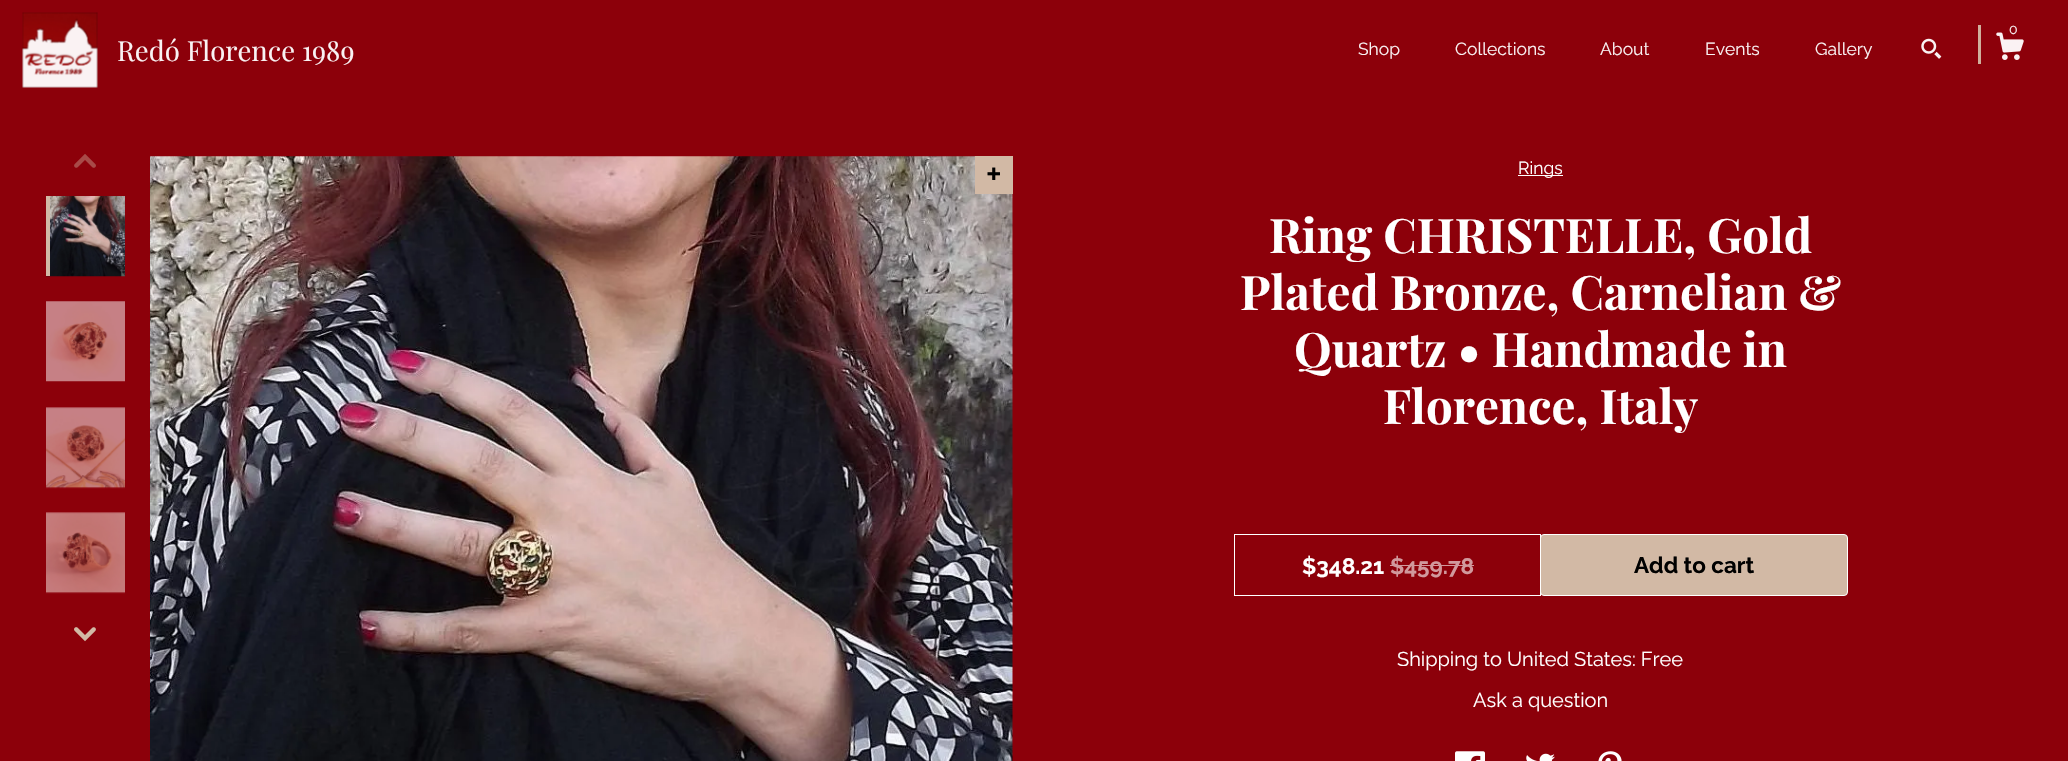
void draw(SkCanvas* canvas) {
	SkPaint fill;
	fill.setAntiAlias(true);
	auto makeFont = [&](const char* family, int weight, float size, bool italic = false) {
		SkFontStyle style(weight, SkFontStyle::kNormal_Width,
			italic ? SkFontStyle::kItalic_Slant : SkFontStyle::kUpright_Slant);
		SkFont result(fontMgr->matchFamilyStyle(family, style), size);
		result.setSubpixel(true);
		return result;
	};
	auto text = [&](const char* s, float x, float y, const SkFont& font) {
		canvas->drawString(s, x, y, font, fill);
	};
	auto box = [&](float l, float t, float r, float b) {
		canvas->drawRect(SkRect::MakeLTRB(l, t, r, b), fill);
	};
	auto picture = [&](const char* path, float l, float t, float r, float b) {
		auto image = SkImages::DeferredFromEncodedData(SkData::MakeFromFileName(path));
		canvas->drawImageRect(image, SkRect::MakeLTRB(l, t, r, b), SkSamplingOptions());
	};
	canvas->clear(0xFF8C000A);
	picture("image0.png", 22, 12, 98, 88);
	fill.setColor(0xFFCFB09D);
	box(1978, 25, 1981, 64);
	picture("image1.png", 1996, 32, 2024, 60);
	picture("image2.png", 1921, 38, 1942, 59);
	picture("image3.png", 74, 154, 96, 168);
	picture("image4.png", 46, 196, 125, 277);
	fill.setColor(0xFFD2B9A5);
	box(46, 196, 50, 276);
	picture("image5.png", 46, 301, 125, 382);
	picture("image6.png", 46, 407, 125, 489);
	picture("image7.png", 46, 512, 125, 594);
	picture("image8.png", 74, 627, 96, 642);
	picture("image9.png", 150, 156, 1013, 761);
	box(975, 156, 1013, 194);
	picture("image10.png", 987, 167, 1000, 180);
	fill.setColor(0xFFFFFFFF);
	box(1518, 175, 1563, 176);
	fill.setColor(0xFFD2B9A5);
	canvas->drawRoundRect(SkRect::MakeLTRB(1540.5f, 534.5f, 1847.5f, 595.5f), 3.5f, 3.5f, fill);
	fill.setStyle(SkPaint::kStroke_Style);
	fill.setStrokeWidth(1);
	fill.setColor(0xFFFFFFFF);
	canvas->drawRoundRect(SkRect::MakeLTRB(1540.5f, 534.5f, 1847.5f, 595.5f), 3.5f, 3.5f, fill);
	canvas->drawRect(SkRect::MakeLTRB(1234.5f, 534.5f, 1540.5f, 595.5f), fill);
	fill.setStyle(SkPaint::kFill_Style);
	fill.setColor(0xFFD1999D);
	box(1390, 565, 1474, 566);
	picture("image11.png", 1455, 751, 1485, 761);
	picture("image12.png", 1526, 753, 1555, 761);
	picture("image13.png", 1598, 751, 1622, 761);
	auto font1 = makeFont("Playfair Display", 400, 27.5f);
	fill.setColor(0xFFF9F2F3);
	text("Redó Florence 1989", 117, 61, font1);
	auto font2 = makeFont("Raleway", 400, 14);
	text("0", 2009, 34, font2);
	auto font3 = makeFont("Raleway", 400, 17.5f);
	text("Shop", 1358, 55, font3);
	text("Collections", 1455, 55, font3);
	text("About", 1600, 55, font3);
	text("Events", 1705, 55, font3);
	text("Gallery", 1815, 55, font3);
	fill.setColor(0xFFFFFFFF);
	text("Rings", 1518, 174, font3);
	auto font4 = makeFont("Playfair Display", 700, 47.5f);
	text("Ring CHRISTELLE, Gold", 1269, 253, font4);
	text("Plated Bronze, Carnelian &", 1240, 310, font4);
	text("Quartz • Handmade in", 1294, 367, font4);
	text("Florence, Italy", 1383, 424, font4);
	auto font5 = makeFont("Raleway", 700, 22.5f);
	text("$348.21", 1302, 574, font5);
	fill.setColor(0xFFD1999D);
	text("$459.78", 1390, 574, font5);
	fill.setColor(0xFF000000);
	text("Add to cart", 1634, 573, font5);
	auto font6 = makeFont("Raleway", 400, 20);
	fill.setColor(0xFFFFFFFF);
	text("Shipping to United States: Free", 1397, 666, font6);
	text("Ask a question", 1473, 707, font6);
}
